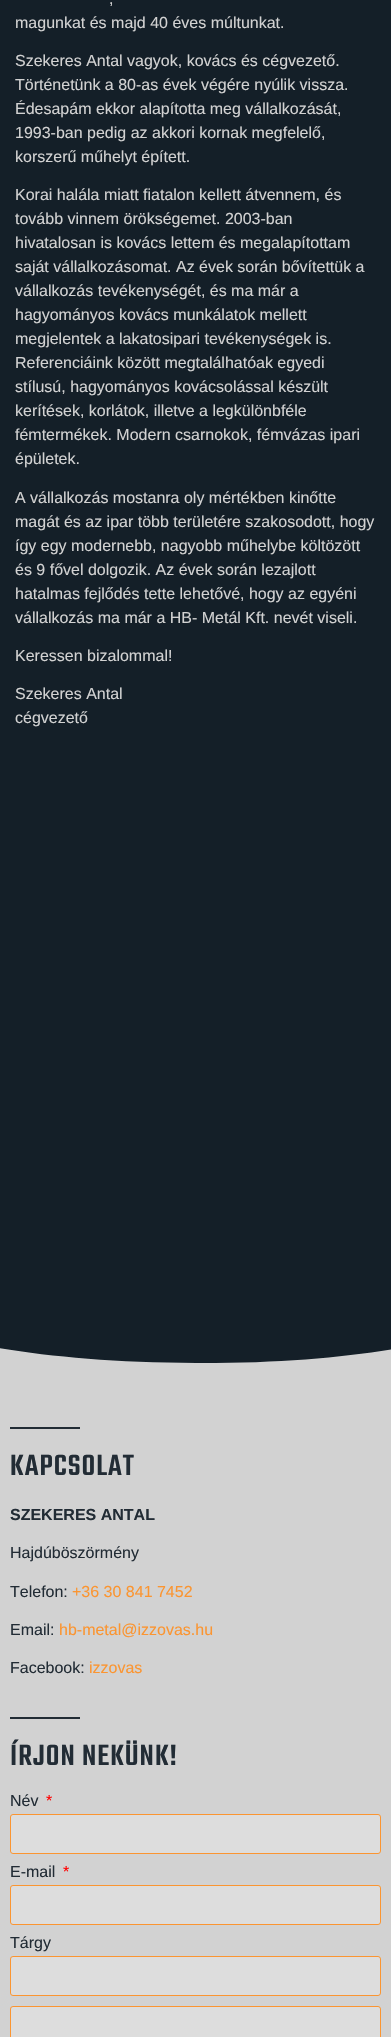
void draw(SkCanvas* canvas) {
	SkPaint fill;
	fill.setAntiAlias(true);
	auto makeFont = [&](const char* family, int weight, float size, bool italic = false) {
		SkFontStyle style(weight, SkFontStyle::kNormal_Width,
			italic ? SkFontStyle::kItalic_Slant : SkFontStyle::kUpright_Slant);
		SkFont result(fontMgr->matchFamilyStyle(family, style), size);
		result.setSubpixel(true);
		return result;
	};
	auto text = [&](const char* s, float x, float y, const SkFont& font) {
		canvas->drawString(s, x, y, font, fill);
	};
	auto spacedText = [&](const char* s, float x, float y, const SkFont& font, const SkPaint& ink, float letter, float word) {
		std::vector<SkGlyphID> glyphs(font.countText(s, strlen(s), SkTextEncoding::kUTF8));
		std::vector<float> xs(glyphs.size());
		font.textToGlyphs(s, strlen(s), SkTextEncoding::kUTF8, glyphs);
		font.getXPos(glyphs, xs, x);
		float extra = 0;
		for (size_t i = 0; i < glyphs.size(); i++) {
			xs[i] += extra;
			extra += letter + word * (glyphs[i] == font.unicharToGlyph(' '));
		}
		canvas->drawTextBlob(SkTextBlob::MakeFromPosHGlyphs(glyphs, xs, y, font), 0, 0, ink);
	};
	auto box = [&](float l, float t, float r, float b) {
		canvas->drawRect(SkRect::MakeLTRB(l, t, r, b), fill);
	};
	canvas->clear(0xFF141F28);
	fill.setColor(0xFFD2D2D2);
	canvas->drawPath(SkPathBuilder().moveTo(196, 1363).cubicTo(-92, 1362, -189, 1288, -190, 1269).lineTo(-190, 1366).lineTo(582, 1366).lineTo(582, 1270).cubicTo(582, 1288, 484, 1364, 196, 1363).close().detach(), fill);
	box(0, 1366, 391, 2037);
	fill.setColor(0xFF222C35);
	box(10, 1427, 80, 1429);
	box(10, 1717, 80, 1719);
	fill.setColor(0xFFDDDDDD);
	canvas->drawRoundRect(SkRect::MakeLTRB(10.5f, 1814.5f, 380.5f, 1853.5f), 2.5f, 2.5f, fill);
	fill.setStyle(SkPaint::kStroke_Style);
	fill.setStrokeWidth(1);
	fill.setColor(0xFFFB9531);
	canvas->drawRoundRect(SkRect::MakeLTRB(10.5f, 1814.5f, 380.5f, 1853.5f), 2.5f, 2.5f, fill);
	fill.setStyle(SkPaint::kFill_Style);
	fill.setColor(0xFFDDDDDD);
	canvas->drawRoundRect(SkRect::MakeLTRB(10.5f, 1885.5f, 380.5f, 1924.5f), 2.5f, 2.5f, fill);
	fill.setStyle(SkPaint::kStroke_Style);
	fill.setColor(0xFFFB9531);
	canvas->drawRoundRect(SkRect::MakeLTRB(10.5f, 1885.5f, 380.5f, 1924.5f), 2.5f, 2.5f, fill);
	fill.setStyle(SkPaint::kFill_Style);
	fill.setColor(0xFFDDDDDD);
	canvas->drawRoundRect(SkRect::MakeLTRB(10.5f, 1956.5f, 380.5f, 1995.5f), 2.5f, 2.5f, fill);
	fill.setStyle(SkPaint::kStroke_Style);
	fill.setColor(0xFFFB9531);
	canvas->drawRoundRect(SkRect::MakeLTRB(10.5f, 1956.5f, 380.5f, 1995.5f), 2.5f, 2.5f, fill);
	fill.setStyle(SkPaint::kFill_Style);
	fill.setColor(0xFFDDDDDD);
	canvas->drawRoundRect(SkRect::MakeLTRB(10.5f, 2006.5f, 380.5f, 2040.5f), 2.5f, 2.5f, fill);
	fill.setStyle(SkPaint::kStroke_Style);
	fill.setColor(0xFFFB9531);
	canvas->drawRoundRect(SkRect::MakeLTRB(10.5f, 2006.5f, 380.5f, 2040.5f), 2.5f, 2.5f, fill);
	auto font1 = makeFont("Liberation Sans", 400, 16);
	fill.setStyle(SkPaint::kFill_Style);
	fill.setColor(0xFFD2D2D2);
	text(",", 109, 4, font1);
	text("magunkat és majd 40 éves múltunkat.", 15, 28, font1);
	text("Szekeres Antal vagyok, kovács és cégvezető.", 15, 66, font1);
	text("Történetünk a 80-as évek végére nyúlik vissza.", 15, 90, font1);
	text("Édesapám ekkor alapította meg vállalkozását,", 15, 114, font1);
	text("1993-ban pedig az akkori kornak megfelelő,", 15, 138, font1);
	text("korszerű műhelyt épített.", 15, 162, font1);
	text("Korai halála miatt fiatalon kellett átvennem, és", 15, 200, font1);
	text("tovább vinnem örökségemet. 2003-ban", 15, 224, font1);
	text("hivatalosan is kovács lettem és megalapítottam", 15, 248, font1);
	text("saját vállalkozásomat. Az évek során bővítettük a", 15, 272, font1);
	text("vállalkozás tevékenységét, és ma már a", 15, 296, font1);
	text("hagyományos kovács munkálatok mellett", 15, 320, font1);
	text("megjelentek a lakatosipari tevékenységek is.", 15, 344, font1);
	text("Referenciáink között megtalálhatóak egyedi", 15, 368, font1);
	text("stílusú, hagyományos kovácsolással készült", 15, 392, font1);
	text("kerítések, korlátok, illetve a legkülönbféle", 15, 416, font1);
	text("fémtermékek. Modern csarnokok, fémvázas ipari", 15, 440, font1);
	text("épületek.", 15, 464, font1);
	text("A vállalkozás mostanra oly mértékben kinőtte", 15, 503, font1);
	text("magát és az ipar több területére szakosodott, hogy", 15, 527, font1);
	text("így egy modernebb, nagyobb műhelybe költözött", 15, 551, font1);
	text("és 9 fővel dolgozik. Az évek során lezajlott", 15, 575, font1);
	text("hatalmas fejlődés tette lehetővé, hogy az egyéni", 15, 599, font1);
	text("vállalkozás ma már a HB- Metál Kft. nevét viseli.", 15, 623, font1);
	text("Keressen bizalommal!", 15, 661, font1);
	text("Szekeres Antal", 15, 699, font1);
	text("cégvezető", 15, 723, font1);
	auto font2 = makeFont("Teko", 500, 32);
	fill.setColor(0xFF222C35);
	spacedText("KAPCSOLAT", 10, 1475, font2, fill, 1, 0);
	auto font3 = makeFont("Liberation Sans", 700, 16);
	text("SZEKERES ANTAL", 10, 1520, font3);
	text("Hajdúböszörmény", 10, 1558, font1);
	text("Telefon:", 10, 1597, font1);
	fill.setColor(0xFFFB9531);
	text("+36 30 841 7452", 72, 1597, font1);
	fill.setColor(0xFF222C35);
	text("Email:", 10, 1635, font1);
	fill.setColor(0xFFFB9531);
	text("hb-metal@izzovas.hu", 59, 1635, font1);
	fill.setColor(0xFF222C35);
	text("Facebook:", 10, 1673, font1);
	fill.setColor(0xFFFB9531);
	text("izzovas", 89, 1673, font1);
	fill.setColor(0xFF222C35);
	spacedText("ÍRJON NEKÜNK!", 10, 1765, font2, fill, 1, 0);
	text("Név", 10, 1806, font1);
	fill.setColor(0xFFFF0000);
	text("*", 46, 1806, font1);
	fill.setColor(0xFF222C35);
	text("E-mail", 10, 1877, font1);
	fill.setColor(0xFFFF0000);
	text("*", 63, 1877, font1);
	fill.setColor(0xFF222C35);
	text("Tárgy", 10, 1948, font1);
}
